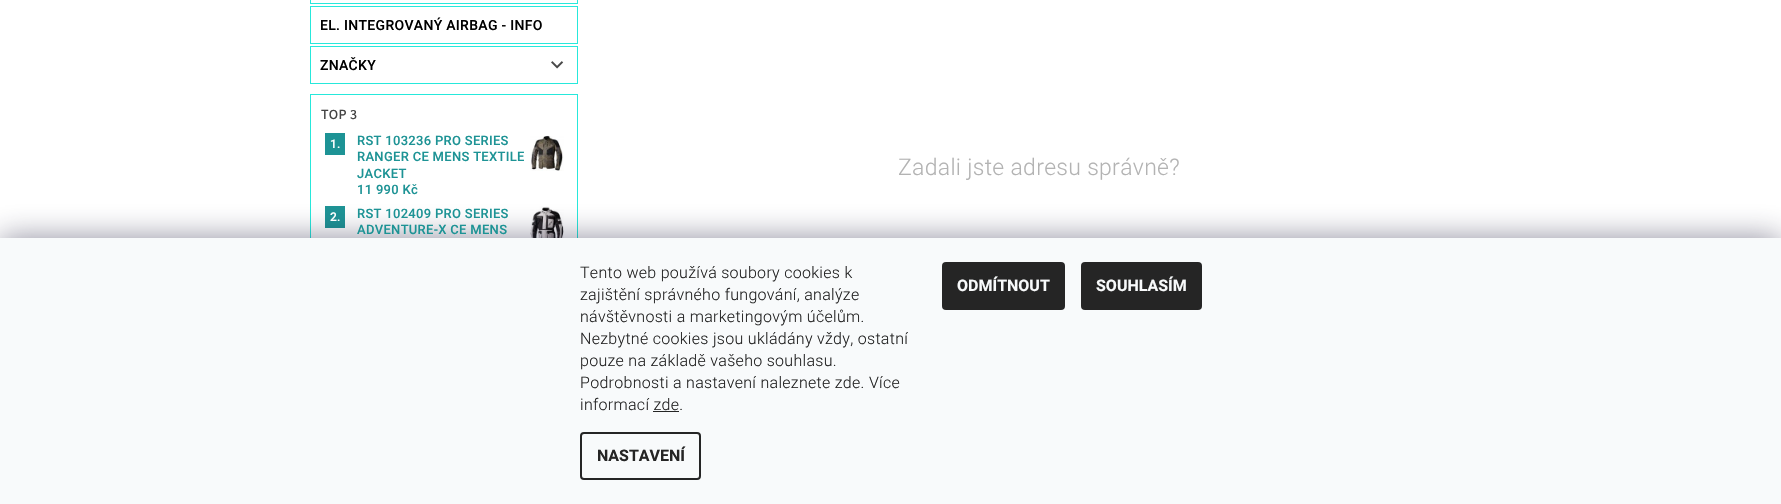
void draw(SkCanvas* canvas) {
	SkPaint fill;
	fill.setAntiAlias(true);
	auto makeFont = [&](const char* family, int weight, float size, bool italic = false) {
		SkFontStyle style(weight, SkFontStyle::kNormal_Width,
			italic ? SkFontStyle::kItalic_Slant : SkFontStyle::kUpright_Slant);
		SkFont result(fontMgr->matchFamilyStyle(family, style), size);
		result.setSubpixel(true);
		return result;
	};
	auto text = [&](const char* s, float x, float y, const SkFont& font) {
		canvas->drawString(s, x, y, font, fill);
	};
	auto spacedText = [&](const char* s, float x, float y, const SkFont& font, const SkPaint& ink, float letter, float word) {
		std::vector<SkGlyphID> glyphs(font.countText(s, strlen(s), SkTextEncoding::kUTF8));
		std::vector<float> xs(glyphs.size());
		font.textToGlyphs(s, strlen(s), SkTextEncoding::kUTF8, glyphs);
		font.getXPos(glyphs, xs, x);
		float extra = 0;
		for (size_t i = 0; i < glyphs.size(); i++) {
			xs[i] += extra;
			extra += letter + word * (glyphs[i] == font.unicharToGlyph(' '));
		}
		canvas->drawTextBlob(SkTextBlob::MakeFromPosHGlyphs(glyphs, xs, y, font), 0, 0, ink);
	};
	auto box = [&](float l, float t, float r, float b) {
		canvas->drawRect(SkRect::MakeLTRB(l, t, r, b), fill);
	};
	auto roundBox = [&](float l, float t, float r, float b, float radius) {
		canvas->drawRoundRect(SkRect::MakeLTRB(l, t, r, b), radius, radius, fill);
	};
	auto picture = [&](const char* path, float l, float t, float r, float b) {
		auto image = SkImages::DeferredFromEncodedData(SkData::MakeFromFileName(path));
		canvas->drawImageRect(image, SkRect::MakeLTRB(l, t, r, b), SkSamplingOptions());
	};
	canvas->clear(0xFFFFFFFF);
	fill.setStyle(SkPaint::kStroke_Style);
	fill.setStrokeWidth(1);
	fill.setColor(0xFF26E8DB);
	canvas->drawRect(SkRect::MakeLTRB(310.5f, -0.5f, 577.5f, 3.5f), fill);
	canvas->drawRect(SkRect::MakeLTRB(310.5f, 6.5f, 577.5f, 43.5f), fill);
	canvas->drawRect(SkRect::MakeLTRB(310.5f, 46.5f, 577.5f, 83.5f), fill);
	picture("image0.png", 551, 61, 564, 69);
	canvas->drawRect(SkRect::MakeLTRB(310.5f, 94.5f, 577.5f, 346.5f), fill);
	fill.setStyle(SkPaint::kFill_Style);
	fill.setColor(0xFF1D9395);
	box(325, 133, 345, 155);
	picture("image1.png", 530, 135, 564, 171);
	box(325, 206, 345, 228);
	picture("image2.png", 530, 206, 564, 238);
	fill.setColor(0x801B1939);
	fill.setMaskFilter(SkMaskFilter::MakeBlur(kNormal_SkBlurStyle, 15));
	canvas->drawRect(SkRect::MakeLTRB(0, 238, 1781, 504), fill);
	fill.setMaskFilter(nullptr);
	fill.setColor(0xFFF8FAFB);
	box(0, 238, 1781, 504);
	fill.setColor(0xFF252525);
	box(653, 411, 679, 412);
	fill.setStyle(SkPaint::kStroke_Style);
	fill.setStrokeWidth(2);
	canvas->drawRoundRect(SkRect::MakeLTRB(581, 433, 700, 479), 3, 3, fill);
	fill.setStyle(SkPaint::kFill_Style);
	roundBox(942, 262, 1065, 310, 4);
	roundBox(1081, 262, 1202, 310, 4);
	auto font1 = makeFont("Roboto", 500, 14);
	fill.setColor(0xFF000000);
	spacedText("EL. INTEGROVANÝ AIRBAG - INFO", 320, 30, font1, fill, 0.3f, 0);
	spacedText("ZNAČKY", 320, 70, font1, fill, 0.3f, 0);
	auto font2 = makeFont("Source Sans 3", 500, 14);
	fill.setColor(0xFF444444);
	spacedText("TOP 3", 321, 119, font2, fill, 0.3f, 0);
	auto font3 = makeFont("Roboto", 500, 12);
	fill.setColor(0xFFFFFFFF);
	spacedText("1.", 330, 148, font3, fill, 0.3f, 0);
	auto font4 = makeFont("Roboto", 500, 13);
	fill.setColor(0xFF1D9395);
	spacedText("RST 103236 PRO SERIES", 357, 145, font4, fill, 0.3f, 0);
	spacedText("RANGER CE MENS TEXTILE", 357, 161, font4, fill, 0.3f, 0);
	spacedText("JACKET", 357, 178, font4, fill, 0.3f, 0);
	spacedText("11 990 Kč", 357, 194, font4, fill, 0.3f, 0);
	fill.setColor(0xFFFFFFFF);
	spacedText("2.", 330, 221, font3, fill, 0.3f, 0);
	fill.setColor(0xFF1D9395);
	spacedText("RST 102409 PRO SERIES", 357, 218, font4, fill, 0.3f, 0);
	spacedText("ADVENTURE-X CE MENS", 357, 234, font4, fill, 0.3f, 0);
	auto font5 = makeFont("Roboto", 300, 23);
	fill.setColor(0xFFB3B3B3);
	spacedText("Zadali jste adresu správně?", 898, 175, font5, fill, 0.3f, 0);
	auto font6 = makeFont("Roboto", 300, 16);
	fill.setColor(0xFF252525);
	spacedText("Tento web používá soubory cookies k", 580, 278, font6, fill, 0.3f, 0);
	spacedText("zajištění správného fungování, analýze", 580, 300, font6, fill, 0.3f, 0);
	spacedText("návštěvnosti a marketingovým účelům.", 580, 322, font6, fill, 0.3f, 0);
	spacedText("Nezbytné cookies jsou ukládány vždy, ostatní", 580, 344, font6, fill, 0.3f, 0);
	spacedText("pouze na základě vašeho souhlasu.", 580, 366, font6, fill, 0.3f, 0);
	spacedText("Podrobnosti a nastavení naleznete zde. Více", 580, 388, font6, fill, 0.3f, 0);
	spacedText("informací zde.", 580, 410, font6, fill, 0.3f, 0);
	auto font7 = makeFont("Roboto", 700, 16);
	text("NASTAVENÍ", 597, 461, font7);
	fill.setColor(0xFFF8FAFB);
	text("ODMÍTNOUT", 957, 291, font7);
	text("SOUHLASÍM", 1096, 291, font7);
}
